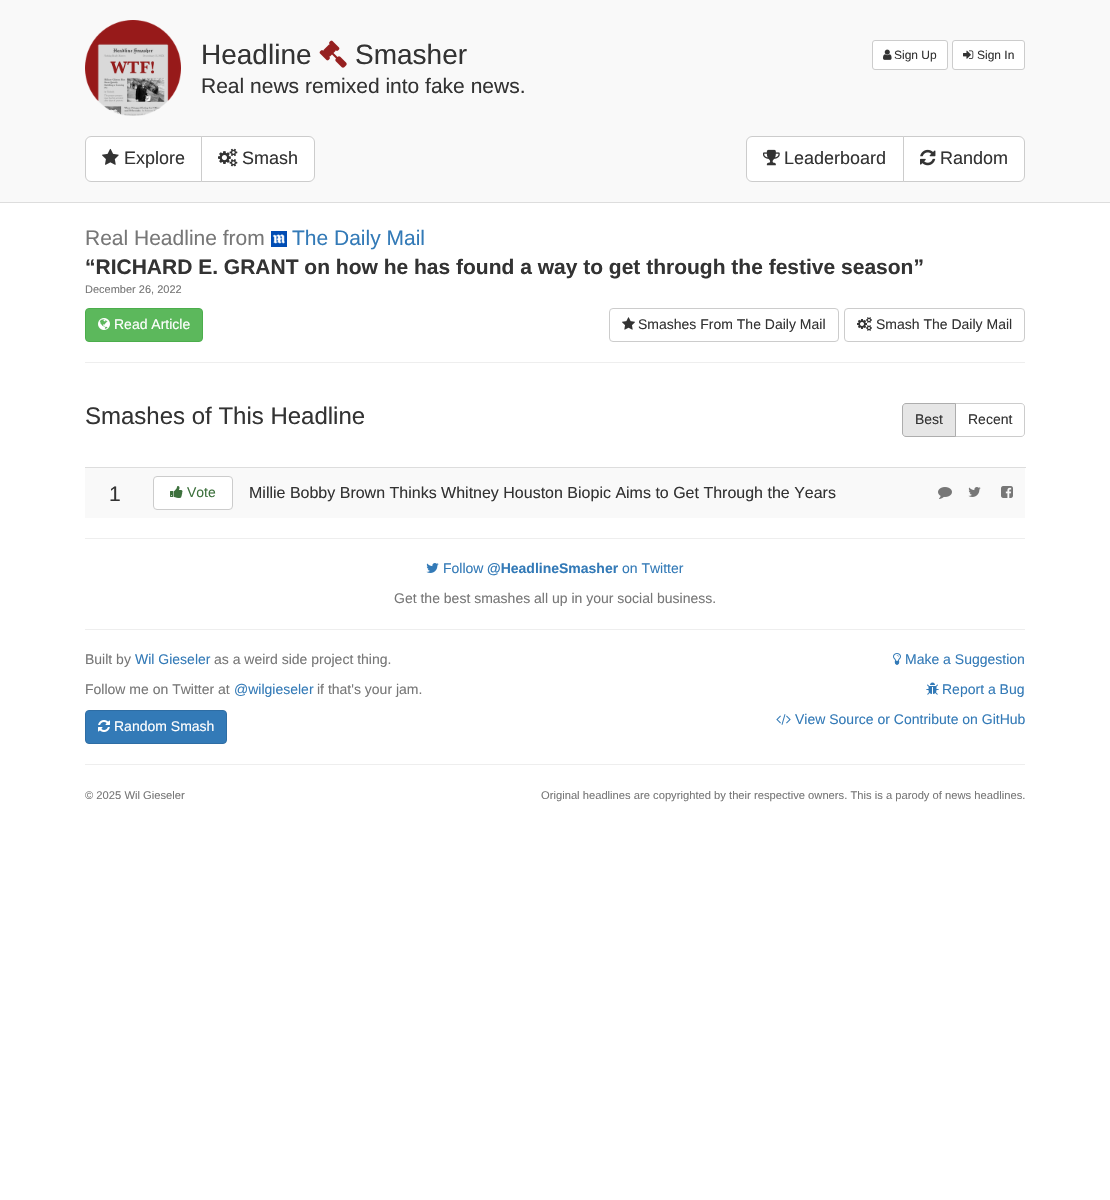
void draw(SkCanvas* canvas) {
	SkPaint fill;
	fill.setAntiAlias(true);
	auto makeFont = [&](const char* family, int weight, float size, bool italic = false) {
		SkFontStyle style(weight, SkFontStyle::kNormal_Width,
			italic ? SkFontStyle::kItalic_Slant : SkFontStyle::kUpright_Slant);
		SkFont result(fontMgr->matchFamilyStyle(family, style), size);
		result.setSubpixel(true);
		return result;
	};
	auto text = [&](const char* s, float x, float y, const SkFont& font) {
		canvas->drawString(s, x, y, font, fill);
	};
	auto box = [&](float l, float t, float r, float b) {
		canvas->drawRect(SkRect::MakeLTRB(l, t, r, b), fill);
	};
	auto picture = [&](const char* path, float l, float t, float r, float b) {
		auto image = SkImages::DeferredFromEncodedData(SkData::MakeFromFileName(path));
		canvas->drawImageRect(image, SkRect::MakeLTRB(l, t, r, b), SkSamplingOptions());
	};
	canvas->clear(0xFFFFFFFF);
	fill.setColor(0xFFF9F9F9);
	box(0, 0, 1110, 202);
	fill.setColor(0xFFDDDDDD);
	box(0, 202, 1110, 203);
	picture("image0.png", 85, 20, 181, 116);
	picture("image1.png", 319, 40, 347, 68);
	fill.setColor(0xFFFFFFFF);
	canvas->drawRoundRect(SkRect::MakeLTRB(872.5f, 40.5f, 947.5f, 69.5f), 2.5f, 2.5f, fill);
	fill.setStyle(SkPaint::kStroke_Style);
	fill.setStrokeWidth(1);
	fill.setColor(0xFFCCCCCC);
	canvas->drawRoundRect(SkRect::MakeLTRB(872.5f, 40.5f, 947.5f, 69.5f), 2.5f, 2.5f, fill);
	picture("image2.png", 883, 49, 892, 60);
	fill.setStyle(SkPaint::kFill_Style);
	fill.setColor(0xFFFFFFFF);
	canvas->drawRoundRect(SkRect::MakeLTRB(952.5f, 40.5f, 1024.5f, 69.5f), 2.5f, 2.5f, fill);
	fill.setStyle(SkPaint::kStroke_Style);
	fill.setColor(0xFFCCCCCC);
	canvas->drawRoundRect(SkRect::MakeLTRB(952.5f, 40.5f, 1024.5f, 69.5f), 2.5f, 2.5f, fill);
	picture("image3.png", 963, 50, 974, 59);
	fill.setStyle(SkPaint::kFill_Style);
	fill.setColor(0xFFFFFFFF);
	canvas->drawPath(SkPathBuilder().moveTo(91, 136.5f).lineTo(201.5f, 136.5f).lineTo(201.5f, 181.5f).lineTo(91, 181.5f).cubicTo(88, 181.5f, 85.5f, 179, 85.5f, 176).lineTo(85.5f, 142).cubicTo(85.5f, 139, 88, 136.5f, 91, 136.5f).close().detach(), fill);
	fill.setStyle(SkPaint::kStroke_Style);
	fill.setColor(0xFFCCCCCC);
	canvas->drawPath(SkPathBuilder().moveTo(91, 136.5f).lineTo(201.5f, 136.5f).lineTo(201.5f, 181.5f).lineTo(91, 181.5f).cubicTo(88, 181.5f, 85.5f, 179, 85.5f, 176).lineTo(85.5f, 142).cubicTo(85.5f, 139, 88, 136.5f, 91, 136.5f).close().detach(), fill);
	picture("image4.png", 102, 148, 119, 165);
	fill.setStyle(SkPaint::kFill_Style);
	fill.setColor(0xFFFFFFFF);
	canvas->drawPath(SkPathBuilder().moveTo(201.5f, 136.5f).lineTo(309, 136.5f).cubicTo(312, 136.5f, 314.5f, 139, 314.5f, 142).lineTo(314.5f, 176).cubicTo(314.5f, 179, 312, 181.5f, 309, 181.5f).lineTo(201.5f, 181.5f).close().detach(), fill);
	fill.setStyle(SkPaint::kStroke_Style);
	fill.setColor(0xFFCCCCCC);
	canvas->drawPath(SkPathBuilder().moveTo(201.5f, 136.5f).lineTo(309, 136.5f).cubicTo(312, 136.5f, 314.5f, 139, 314.5f, 142).lineTo(314.5f, 176).cubicTo(314.5f, 179, 312, 181.5f, 309, 181.5f).lineTo(201.5f, 181.5f).close().detach(), fill);
	picture("image5.png", 218, 148, 238, 167);
	fill.setStyle(SkPaint::kFill_Style);
	fill.setColor(0xFFFFFFFF);
	canvas->drawPath(SkPathBuilder().moveTo(752, 136.5f).lineTo(903.5f, 136.5f).lineTo(903.5f, 181.5f).lineTo(752, 181.5f).cubicTo(749, 181.5f, 746.5f, 179, 746.5f, 176).lineTo(746.5f, 142).cubicTo(746.5f, 139, 749, 136.5f, 752, 136.5f).close().detach(), fill);
	fill.setStyle(SkPaint::kStroke_Style);
	fill.setColor(0xFFCCCCCC);
	canvas->drawPath(SkPathBuilder().moveTo(752, 136.5f).lineTo(903.5f, 136.5f).lineTo(903.5f, 181.5f).lineTo(752, 181.5f).cubicTo(749, 181.5f, 746.5f, 179, 746.5f, 176).lineTo(746.5f, 142).cubicTo(746.5f, 139, 749, 136.5f, 752, 136.5f).close().detach(), fill);
	picture("image6.png", 763, 149, 780, 166);
	fill.setStyle(SkPaint::kFill_Style);
	fill.setColor(0xFFFFFFFF);
	canvas->drawPath(SkPathBuilder().moveTo(903.5f, 136.5f).lineTo(1019, 136.5f).cubicTo(1022, 136.5f, 1024.5f, 139, 1024.5f, 142).lineTo(1024.5f, 176).cubicTo(1024.5f, 179, 1022, 181.5f, 1019, 181.5f).lineTo(903.5f, 181.5f).close().detach(), fill);
	fill.setStyle(SkPaint::kStroke_Style);
	fill.setColor(0xFFCCCCCC);
	canvas->drawPath(SkPathBuilder().moveTo(903.5f, 136.5f).lineTo(1019, 136.5f).cubicTo(1022, 136.5f, 1024.5f, 139, 1024.5f, 142).lineTo(1024.5f, 176).cubicTo(1024.5f, 179, 1022, 181.5f, 1019, 181.5f).lineTo(903.5f, 181.5f).close().detach(), fill);
	picture("image7.png", 920, 149, 936, 166);
	picture("image8.png", 271, 231, 287, 247);
	fill.setStyle(SkPaint::kFill_Style);
	fill.setColor(0xFF5CB85C);
	canvas->drawRoundRect(SkRect::MakeLTRB(85.5f, 308.5f, 202.5f, 341.5f), 3.5f, 3.5f, fill);
	fill.setStyle(SkPaint::kStroke_Style);
	fill.setColor(0xFF4CAE4C);
	canvas->drawRoundRect(SkRect::MakeLTRB(85.5f, 308.5f, 202.5f, 341.5f), 3.5f, 3.5f, fill);
	picture("image9.png", 98, 318, 110, 330);
	fill.setColor(0xFFCCCCCC);
	canvas->drawRoundRect(SkRect::MakeLTRB(609.5f, 308.5f, 838.5f, 341.5f), 3.5f, 3.5f, fill);
	picture("image10.png", 622, 317, 635, 330);
	canvas->drawRoundRect(SkRect::MakeLTRB(844.5f, 308.5f, 1024.5f, 341.5f), 3.5f, 3.5f, fill);
	picture("image11.png", 857, 317, 872, 331);
	fill.setStyle(SkPaint::kFill_Style);
	fill.setColor(0xFFEEEEEE);
	box(85, 362, 1025, 363);
	fill.setStyle(SkPaint::kStroke_Style);
	fill.setColor(0xFFCCCCCC);
	canvas->drawPath(SkPathBuilder().moveTo(955.5f, 403.5f).lineTo(1021, 403.5f).cubicTo(1023, 403.5f, 1024.5f, 405, 1024.5f, 407).lineTo(1024.5f, 433).cubicTo(1024.5f, 435, 1023, 436.5f, 1021, 436.5f).lineTo(955.5f, 436.5f).close().detach(), fill);
	fill.setStyle(SkPaint::kFill_Style);
	fill.setColor(0xFFE6E6E6);
	canvas->drawPath(SkPathBuilder().moveTo(906, 403.5f).lineTo(955.5f, 403.5f).lineTo(955.5f, 436.5f).lineTo(906, 436.5f).cubicTo(904, 436.5f, 902.5f, 435, 902.5f, 433).lineTo(902.5f, 407).cubicTo(902.5f, 405, 904, 403.5f, 906, 403.5f).close().detach(), fill);
	fill.setStyle(SkPaint::kStroke_Style);
	fill.setColor(0xFFADADAD);
	canvas->drawPath(SkPathBuilder().moveTo(906, 403.5f).lineTo(955.5f, 403.5f).lineTo(955.5f, 436.5f).lineTo(906, 436.5f).cubicTo(904, 436.5f, 902.5f, 435, 902.5f, 433).lineTo(902.5f, 407).cubicTo(902.5f, 405, 904, 403.5f, 906, 403.5f).close().detach(), fill);
	fill.setStyle(SkPaint::kFill_Style);
	fill.setColor(0xFFF9F9F9);
	box(85, 468, 1025, 518);
	fill.setColor(0xFFDDDDDD);
	box(85, 467, 1026, 468);
	picture("image12.png", 1001, 486, 1013, 498);
	fill.setColor(0xFFFFFFFF);
	canvas->drawRoundRect(SkRect::MakeLTRB(153.5f, 476.5f, 232.5f, 509.5f), 3.5f, 3.5f, fill);
	fill.setStyle(SkPaint::kStroke_Style);
	fill.setColor(0xFFCCCCCC);
	canvas->drawRoundRect(SkRect::MakeLTRB(153.5f, 476.5f, 232.5f, 509.5f), 3.5f, 3.5f, fill);
	picture("image13.png", 170, 486, 183, 498);
	picture("image14.png", 938, 487, 952, 499);
	picture("image15.png", 968, 487, 981, 497);
	fill.setStyle(SkPaint::kFill_Style);
	fill.setColor(0xFFEEEEEE);
	box(85, 538, 1025, 539);
	picture("image16.png", 426, 563, 439, 573);
	box(85, 629, 1025, 630);
	fill.setColor(0xFF337AB7);
	canvas->drawRoundRect(SkRect::MakeLTRB(85.5f, 710.5f, 226.5f, 743.5f), 3.5f, 3.5f, fill);
	fill.setStyle(SkPaint::kStroke_Style);
	fill.setColor(0xFF2E6DA4);
	canvas->drawRoundRect(SkRect::MakeLTRB(85.5f, 710.5f, 226.5f, 743.5f), 3.5f, 3.5f, fill);
	picture("image17.png", 98, 720, 110, 732);
	picture("image18.png", 893, 653, 901, 665);
	picture("image19.png", 926, 682, 939, 695);
	picture("image20.png", 776, 714, 791, 725);
	fill.setStyle(SkPaint::kFill_Style);
	fill.setColor(0xFFEEEEEE);
	box(85, 764, 1025, 765);
	auto font1 = makeFont("Liberation Sans", 400, 28);
	fill.setColor(0xFF333333);
	text("Headline", 201, 64, font1);
	text("Smasher", 355, 64, font1);
	auto font2 = makeFont("Liberation Sans", 400, 21);
	text("Real news remixed into fake news.", 201, 93, font2);
	auto font3 = makeFont("Liberation Sans", 400, 12);
	text("Sign Up", 894, 59, font3);
	text("Sign In", 977, 59, font3);
	auto font4 = makeFont("Liberation Sans", 400, 18);
	text("Explore", 124, 164, font4);
	text("Smash", 242, 164, font4);
	text("Leaderboard", 784, 164, font4);
	text("Random", 940, 164, font4);
	fill.setColor(0xFF777777);
	text("Real Headline from", 85, 245, font2);
	fill.setColor(0xFF337AB7);
	text("The Daily Mail", 292, 245, font2);
	auto font5 = makeFont("Liberation Sans", 700, 21);
	fill.setColor(0xFF333333);
	text("“RICHARD E. GRANT on how he has found a way to get through the festive season”", 85, 274, font5);
	auto font6 = makeFont("Liberation Sans", 400, 11);
	fill.setColor(0xFF777777);
	text("December 26, 2022", 85, 293, font6);
	auto font7 = makeFont("Liberation Sans", 400, 14);
	fill.setColor(0xFFFFFFFF);
	text("Read Article", 114, 329, font7);
	fill.setColor(0xFF333333);
	text("Smashes From The Daily Mail", 638, 329, font7);
	text("Smash The Daily Mail", 876, 329, font7);
	auto font8 = makeFont("Liberation Sans", 400, 24);
	text("Smashes of This Headline", 85, 424, font8);
	text("Best", 915, 424, font7);
	text("Recent", 968, 424, font7);
	text("1", 109, 501, font2);
	fill.setColor(0xFF3D713D);
	text("Vote", 187, 497, font7);
	auto font9 = makeFont("Liberation Sans", 400, 16);
	fill.setColor(0xFF333333);
	text("Millie Bobby Brown Thinks Whitney Houston Biopic Aims to Get Through the Years", 249, 498, font9);
	fill.setColor(0xFF337AB7);
	text("Follow", 443, 573, font7);
	auto font10 = makeFont("Liberation Sans", 700, 14);
	text("@HeadlineSmasher", 487, 573, font10);
	text("on Twitter", 622, 573, font7);
	fill.setColor(0xFF777777);
	text("Get the best smashes all up in your social business.", 394, 603, font7);
	text("Built by", 85, 664, font7);
	fill.setColor(0xFF337AB7);
	text("Wil Gieseler", 135, 664, font7);
	fill.setColor(0xFF777777);
	text("as a weird side project thing.", 214, 664, font7);
	text("Follow me on Twitter at", 85, 694, font7);
	fill.setColor(0xFF337AB7);
	text("@wilgieseler", 234, 694, font7);
	fill.setColor(0xFF777777);
	text("if that's your jam.", 317, 694, font7);
	fill.setColor(0xFFFFFFFF);
	text("Random Smash", 114, 731, font7);
	fill.setColor(0xFF337AB7);
	text("Make a Suggestion", 905, 664, font7);
	text("Report a Bug", 942, 694, font7);
	text("View Source or Contribute on GitHub", 795, 724, font7);
	auto font11 = makeFont("Liberation Sans", 400, 11.2f);
	fill.setColor(0xFF777777);
	text("© 2025 Wil Gieseler", 85, 799, font11);
	text("Original headlines are copyrighted by their respective owners. This is a parody of news headlines.", 541, 799, font11);
}
